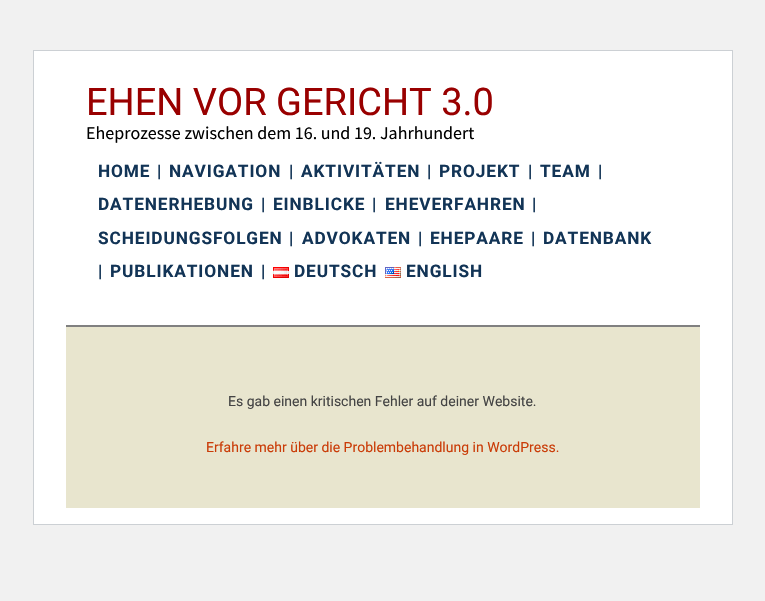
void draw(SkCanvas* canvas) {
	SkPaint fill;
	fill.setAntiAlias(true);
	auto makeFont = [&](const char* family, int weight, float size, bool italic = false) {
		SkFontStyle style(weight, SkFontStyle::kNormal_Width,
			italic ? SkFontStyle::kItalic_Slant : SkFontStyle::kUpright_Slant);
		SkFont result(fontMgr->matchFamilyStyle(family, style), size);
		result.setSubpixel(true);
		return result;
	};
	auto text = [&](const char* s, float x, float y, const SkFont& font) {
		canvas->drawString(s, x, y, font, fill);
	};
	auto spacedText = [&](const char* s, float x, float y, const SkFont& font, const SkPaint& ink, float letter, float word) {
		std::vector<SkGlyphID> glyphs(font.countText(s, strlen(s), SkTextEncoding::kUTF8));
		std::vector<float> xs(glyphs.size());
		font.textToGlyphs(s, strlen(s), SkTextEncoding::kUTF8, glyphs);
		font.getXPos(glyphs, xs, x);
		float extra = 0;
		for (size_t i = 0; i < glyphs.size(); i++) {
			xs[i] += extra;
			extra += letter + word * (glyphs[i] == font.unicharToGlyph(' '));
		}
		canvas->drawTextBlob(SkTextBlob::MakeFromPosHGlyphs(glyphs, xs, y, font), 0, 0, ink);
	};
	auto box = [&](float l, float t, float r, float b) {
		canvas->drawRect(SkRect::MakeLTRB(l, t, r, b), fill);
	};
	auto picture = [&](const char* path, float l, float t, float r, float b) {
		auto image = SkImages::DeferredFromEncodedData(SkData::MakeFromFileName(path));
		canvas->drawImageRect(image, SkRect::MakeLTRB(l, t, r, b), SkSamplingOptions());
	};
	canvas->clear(0xFFF1F1F1);
	fill.setColor(0xFFFFFFFF);
	canvas->drawRect(SkRect::MakeLTRB(33.5f, 50.5f, 732.5f, 524.5f), fill);
	fill.setStyle(SkPaint::kStroke_Style);
	fill.setStrokeWidth(1);
	fill.setColor(0xFFCCD0D4);
	canvas->drawRect(SkRect::MakeLTRB(33.5f, 50.5f, 732.5f, 524.5f), fill);
	fill.setStyle(SkPaint::kFill_Style);
	fill.setColor(0xFF808080);
	box(66, 325, 700, 327);
	picture("image0.png", 273, 267, 289, 278);
	picture("image1.png", 385, 267, 401, 278);
	fill.setColor(0xFFE8E5CE);
	box(66, 327, 700, 508);
	auto font1 = makeFont("Roboto", 400, 38);
	fill.setColor(0xFF990000);
	text("EHEN VOR GERICHT 3.0", 86, 115, font1);
	auto font2 = makeFont("Source Sans Pro", 400, 18);
	fill.setColor(0xFF000000);
	text("Eheprozesse zwischen dem 16. und 19. Jahrhundert", 86, 139, font2);
	auto font3 = makeFont("Roboto", 700, 17.25f);
	fill.setColor(0xFF123456);
	spacedText("HOME", 98, 177, font3, fill, 0.9f, 0);
	spacedText("|", 157, 177, font3, fill, 0.9f, 0);
	spacedText("NAVIGATION", 169, 177, font3, fill, 0.9f, 0);
	spacedText("|", 289, 177, font3, fill, 0.9f, 0);
	spacedText("AKTIVITÄTEN", 301, 177, font3, fill, 0.9f, 0);
	spacedText("|", 427, 177, font3, fill, 0.9f, 0);
	spacedText("PROJEKT", 439, 177, font3, fill, 0.9f, 0);
	spacedText("|", 528, 177, font3, fill, 0.9f, 0);
	spacedText("TEAM", 540, 177, font3, fill, 0.9f, 0);
	spacedText("|", 598, 177, font3, fill, 0.9f, 0);
	spacedText("DATENERHEBUNG", 98, 210, font3, fill, 0.9f, 0);
	spacedText("|", 261, 210, font3, fill, 0.9f, 0);
	spacedText("EINBLICKE", 273, 210, font3, fill, 0.9f, 0);
	spacedText("|", 372, 210, font3, fill, 0.9f, 0);
	spacedText("EHEVERFAHREN", 385, 210, font3, fill, 0.9f, 0);
	spacedText("|", 532, 210, font3, fill, 0.9f, 0);
	spacedText("SCHEIDUNGSFOLGEN", 98, 244, font3, fill, 0.9f, 0);
	spacedText("|", 289, 244, font3, fill, 0.9f, 0);
	spacedText("ADVOKATEN", 302, 244, font3, fill, 0.9f, 0);
	spacedText("|", 418, 244, font3, fill, 0.9f, 0);
	spacedText("EHEPAARE", 430, 244, font3, fill, 0.9f, 0);
	spacedText("|", 531, 244, font3, fill, 0.9f, 0);
	spacedText("DATENBANK", 543, 244, font3, fill, 0.9f, 0);
	spacedText("|", 98, 277, font3, fill, 0.9f, 0);
	spacedText("PUBLIKATIONEN", 110, 277, font3, fill, 0.9f, 0);
	spacedText("|", 261, 277, font3, fill, 0.9f, 0);
	spacedText("DEUTSCH", 294, 277, font3, fill, 0.9f, 0);
	spacedText("ENGLISH", 406, 277, font3, fill, 0.9f, 0);
	auto font4 = makeFont("Roboto", 400, 14);
	fill.setColor(0xFF444444);
	text("Es gab einen kritischen Fehler auf deiner Website.", 228, 406, font4);
	fill.setColor(0xFFCA3C08);
	text("Erfahre mehr über die Problembehandlung in WordPress.", 206, 452, font4);
}
